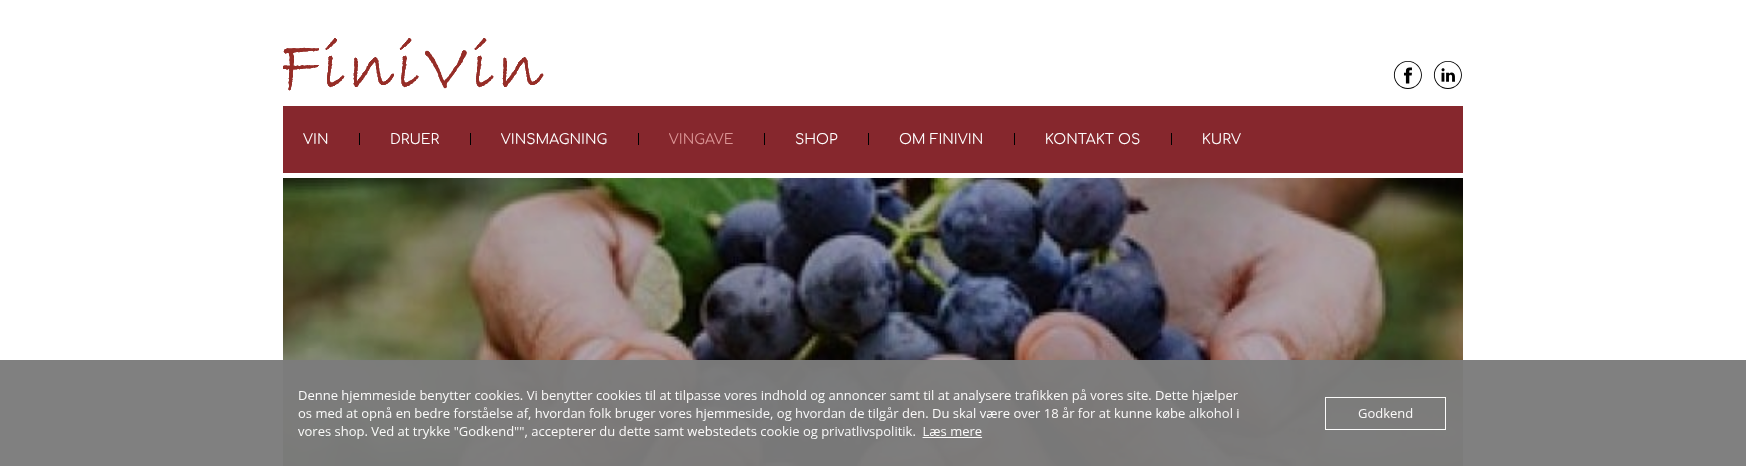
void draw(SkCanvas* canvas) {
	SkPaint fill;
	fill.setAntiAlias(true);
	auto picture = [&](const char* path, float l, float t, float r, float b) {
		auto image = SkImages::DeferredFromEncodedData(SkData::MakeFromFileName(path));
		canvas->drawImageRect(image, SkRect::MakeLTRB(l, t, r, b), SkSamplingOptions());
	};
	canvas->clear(0xFFFFFFFF);
	picture("image0.png", 0, 38, 1746, 466);
}
